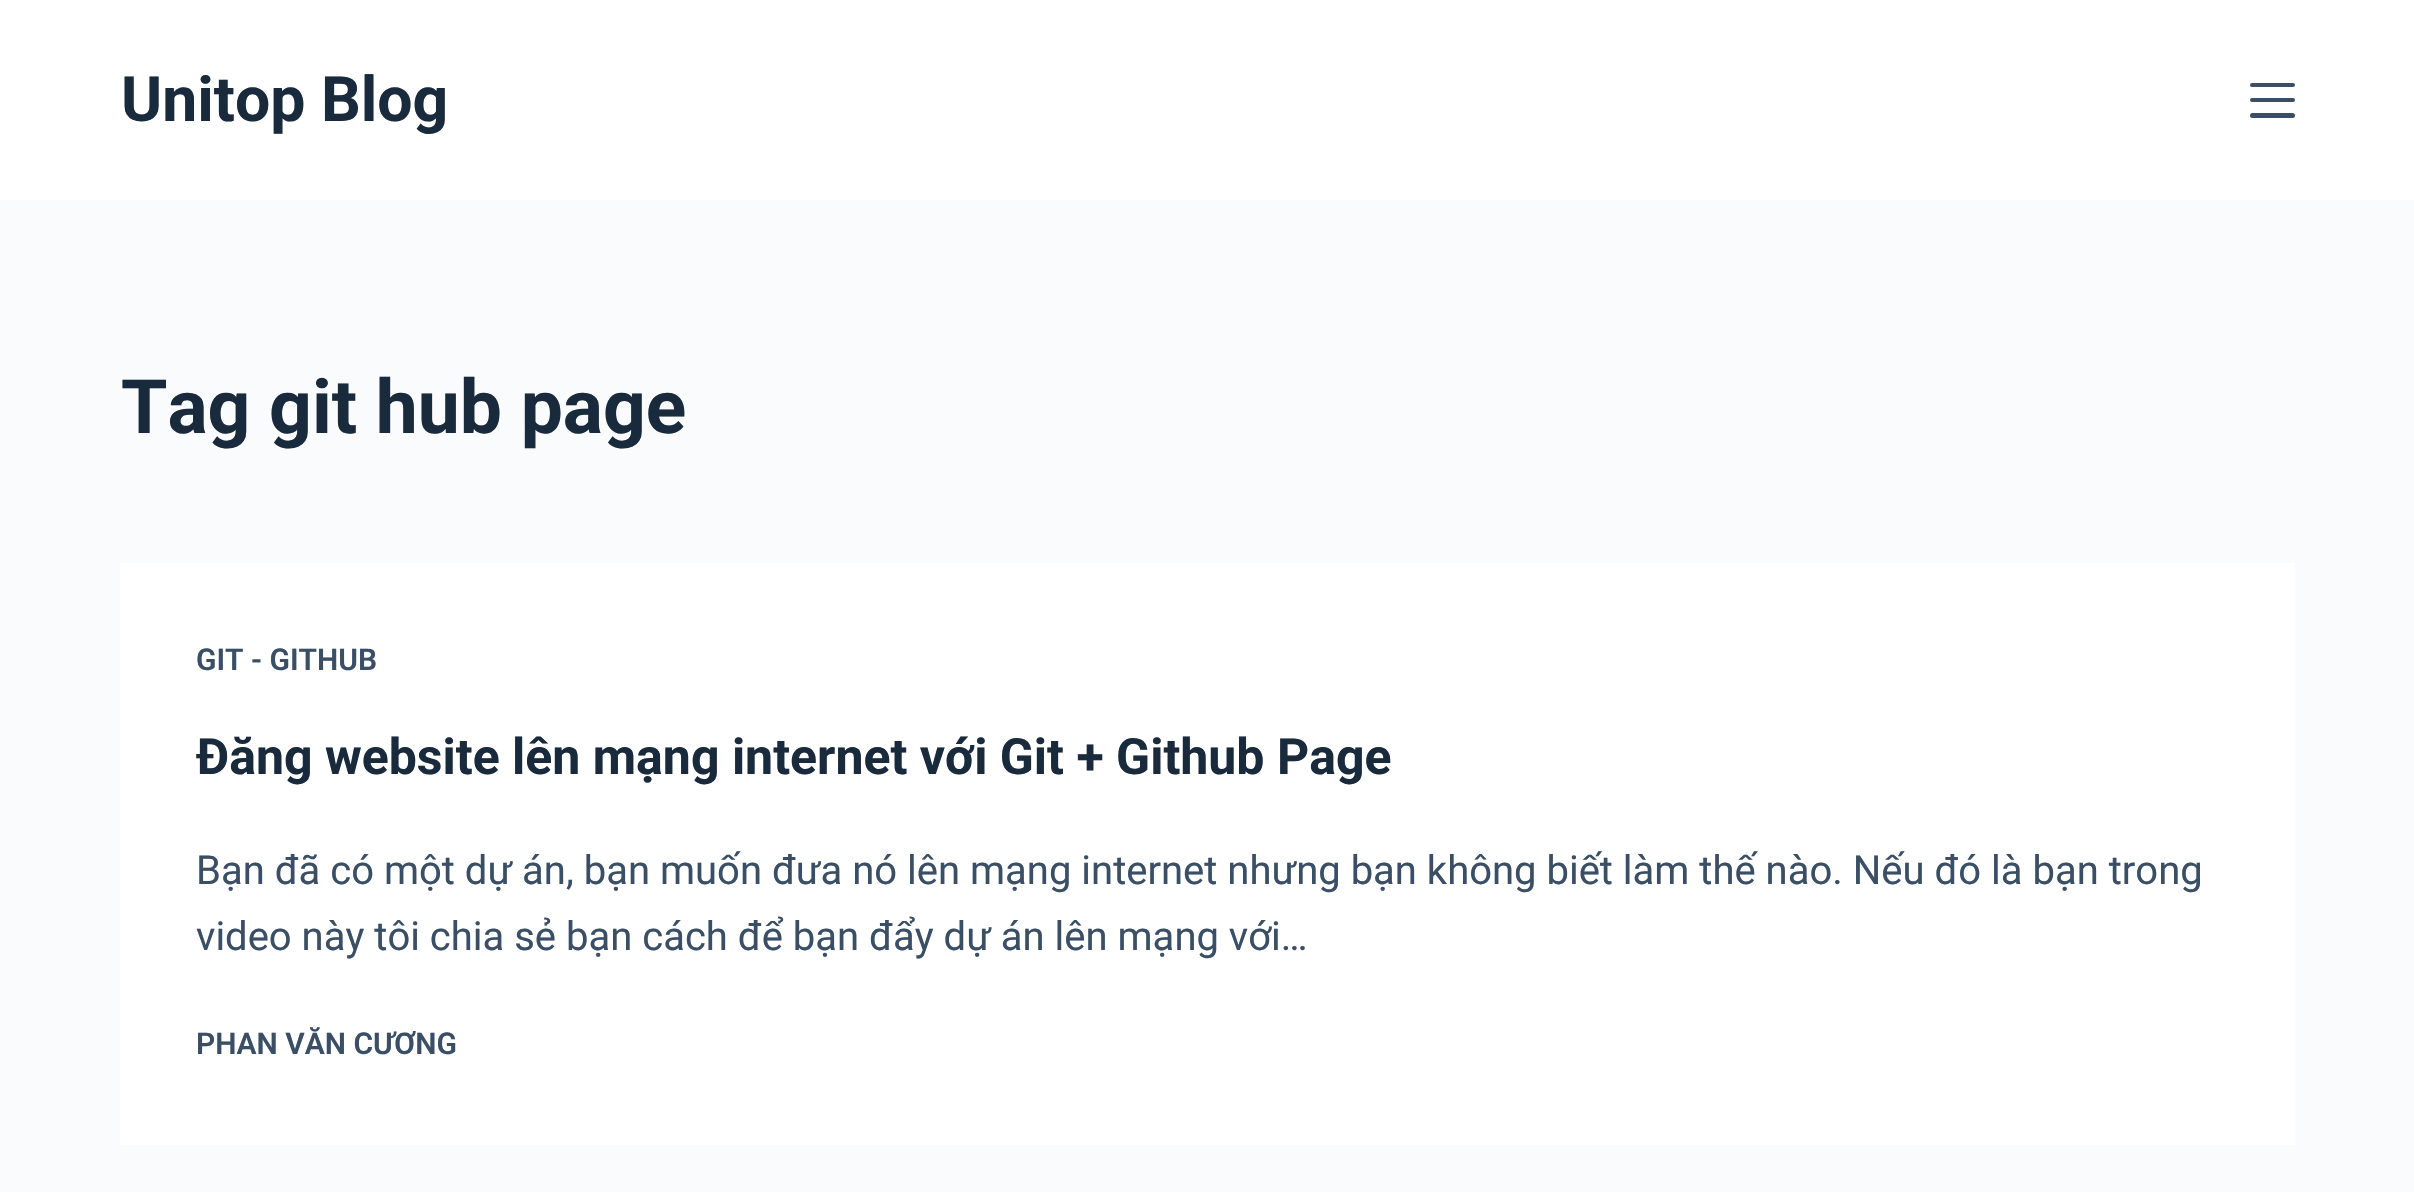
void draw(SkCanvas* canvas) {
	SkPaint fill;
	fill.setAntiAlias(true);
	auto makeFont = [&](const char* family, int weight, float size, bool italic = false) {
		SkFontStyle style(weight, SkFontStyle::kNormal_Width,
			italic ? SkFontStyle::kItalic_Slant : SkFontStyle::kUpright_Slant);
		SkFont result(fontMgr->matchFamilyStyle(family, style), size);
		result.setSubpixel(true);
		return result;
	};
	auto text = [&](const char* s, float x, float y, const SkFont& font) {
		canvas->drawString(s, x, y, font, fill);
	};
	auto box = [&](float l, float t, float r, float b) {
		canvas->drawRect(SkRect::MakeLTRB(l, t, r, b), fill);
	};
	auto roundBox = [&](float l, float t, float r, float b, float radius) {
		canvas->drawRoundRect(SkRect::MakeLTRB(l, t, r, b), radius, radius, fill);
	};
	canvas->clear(0xFFFAFBFC);
	fill.setColor(0xFFFFFFFF);
	box(0, 0, 2414, 200);
	fill.setColor(0xFF3A4F66);
	roundBox(2250, 83, 2295, 87, 2);
	roundBox(2250, 98, 2295, 102, 2);
	roundBox(2250, 113, 2295, 118, 2.5f);
	fill.setColor(0xFFFFFFFF);
	box(120, 563, 2295, 1145);
	auto font1 = makeFont("Roboto", 700, 62.5f);
	fill.setColor(0xFF192A3D);
	text("Unitop Blog", 121, 121, font1);
	auto font2 = makeFont("Roboto", 700, 75);
	text("Tag git hub page", 121, 433, font2);
	auto font3 = makeFont("Roboto", 600, 30);
	fill.setColor(0xFF3A4F66);
	text("GIT - GITHUB", 196, 670, font3);
	auto font4 = makeFont("Roboto", 700, 50);
	fill.setColor(0xFF192A3D);
	text("Đăng website lên mạng internet với Git + Github Page", 196, 774, font4);
	auto font5 = makeFont("Roboto", 400, 40);
	fill.setColor(0xFF3A4F66);
	text("Bạn đã có một dự án, bạn muốn đưa nó lên mạng internet nhưng bạn không biết làm thế nào. Nếu đó là bạn trong", 196, 884, font5);
	text("video này tôi chia sẻ bạn cách để bạn đẩy dự án lên mạng với…", 196, 950, font5);
	text("PHAN VĂN CƯƠNG", 196, 1054, font3);
}
